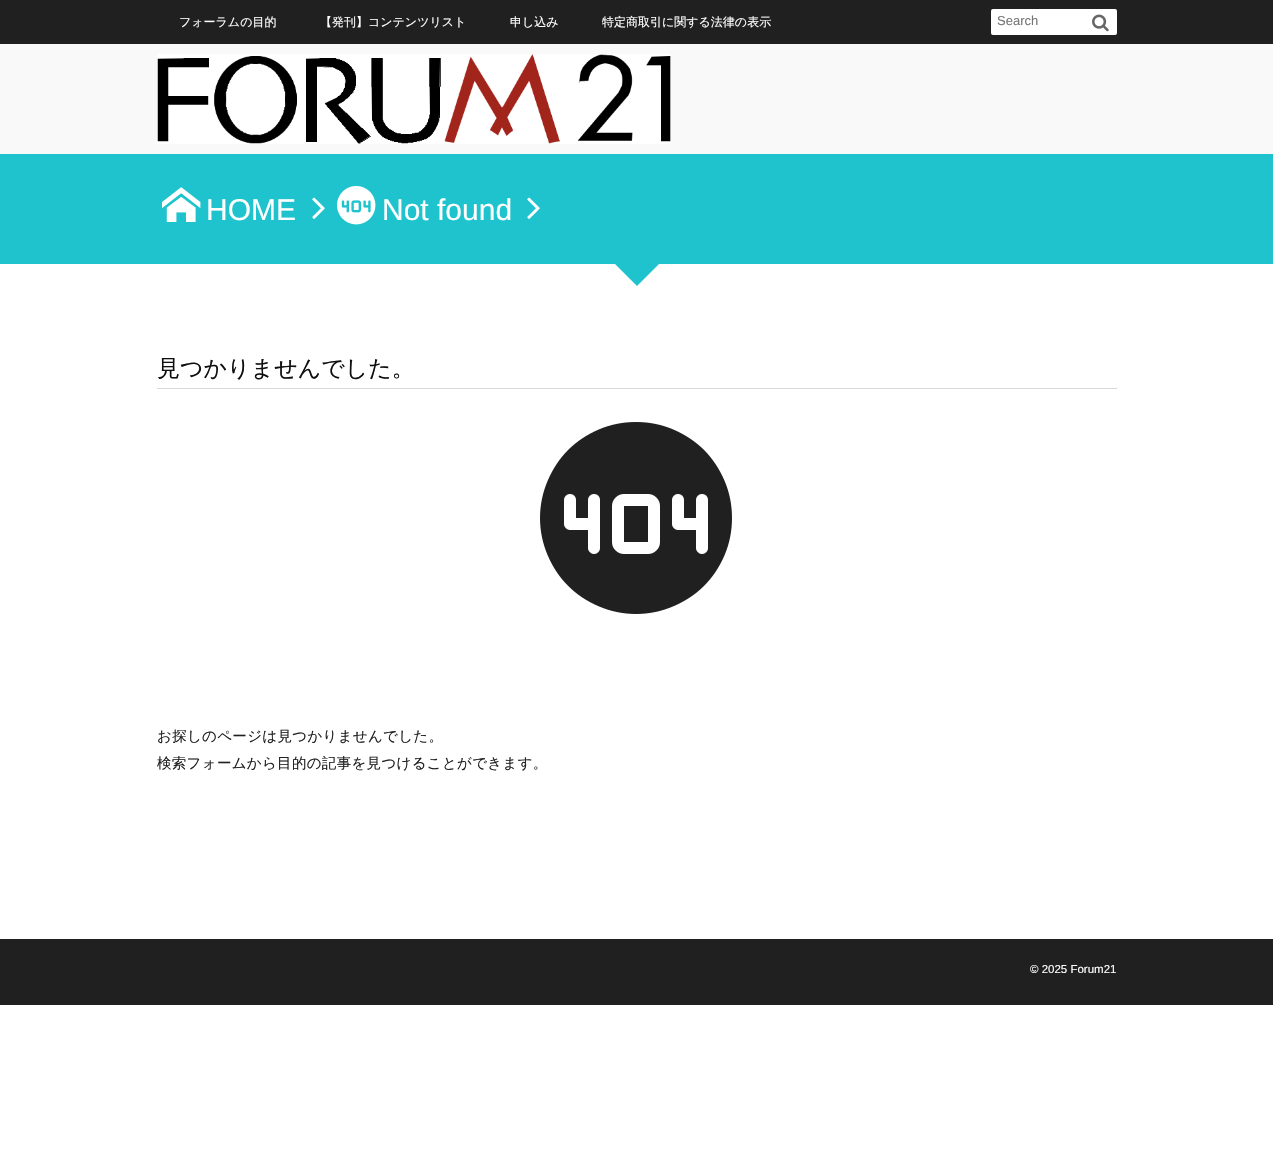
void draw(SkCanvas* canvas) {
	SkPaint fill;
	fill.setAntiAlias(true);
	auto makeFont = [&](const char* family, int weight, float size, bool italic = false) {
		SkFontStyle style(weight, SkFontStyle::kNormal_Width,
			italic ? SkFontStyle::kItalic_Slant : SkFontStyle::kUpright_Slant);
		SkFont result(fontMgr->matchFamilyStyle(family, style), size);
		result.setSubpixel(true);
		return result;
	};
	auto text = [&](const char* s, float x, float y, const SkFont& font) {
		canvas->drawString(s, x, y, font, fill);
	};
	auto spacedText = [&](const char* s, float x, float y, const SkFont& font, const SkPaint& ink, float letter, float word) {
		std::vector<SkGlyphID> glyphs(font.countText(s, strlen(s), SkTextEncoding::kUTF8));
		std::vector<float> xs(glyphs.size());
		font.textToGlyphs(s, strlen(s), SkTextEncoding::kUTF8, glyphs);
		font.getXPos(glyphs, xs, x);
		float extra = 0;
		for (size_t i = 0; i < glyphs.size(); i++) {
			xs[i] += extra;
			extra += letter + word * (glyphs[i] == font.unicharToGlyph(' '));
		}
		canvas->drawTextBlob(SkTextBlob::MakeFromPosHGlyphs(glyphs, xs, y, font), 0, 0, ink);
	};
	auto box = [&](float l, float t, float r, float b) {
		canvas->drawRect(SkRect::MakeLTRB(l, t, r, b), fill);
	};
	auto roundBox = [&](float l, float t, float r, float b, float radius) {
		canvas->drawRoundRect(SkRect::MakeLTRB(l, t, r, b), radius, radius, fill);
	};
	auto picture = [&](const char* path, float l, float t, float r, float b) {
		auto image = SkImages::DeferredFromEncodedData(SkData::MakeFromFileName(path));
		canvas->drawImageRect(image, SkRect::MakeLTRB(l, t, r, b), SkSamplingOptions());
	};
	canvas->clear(0xFFFFFFFF);
	fill.setColor(0xFFF9F9F9);
	box(0, 44, 1273, 154);
	fill.setColor(0xFF202020);
	box(0, 0, 1273, 44);
	fill.setColor(0xFFFFFFFF);
	roundBox(991, 9, 1117, 35, 2);
	picture("image0.png", 1092, 14, 1109, 32);
	picture("image1.png", 157, 54, 671, 144);
	fill.setColor(0xFF1EC3CE);
	box(0, 154, 1273, 264);
	picture("image2.png", 162, 187, 201, 222);
	picture("image3.png", 312, 197, 325, 219);
	picture("image4.png", 337, 186, 376, 225);
	picture("image3.png", 527, 197, 540, 219);
	canvas->drawPath(SkPathBuilder().moveTo(615, 264).lineTo(659, 264).lineTo(637, 286).close().detach(), fill);
	fill.setColor(0xFFD7D7D7);
	box(157, 388, 1117, 389);
	picture("image5.png", 540, 422, 732, 614);
	fill.setColor(0xFF202020);
	box(0, 939, 1273, 1005);
	auto font1 = makeFont("WenQuanYi Zen Hei", 500, 12);
	fill.setColor(0xFFFFFFFF);
	text("フォーラムの目的", 179, 26, font1);
	text("【発刊】コンテンツリスト", 320, 26, font1);
	text("申し込み", 510, 26, font1);
	text("特定商取引に関する法律の表示", 602, 26, font1);
	auto font2 = makeFont("Liberation Sans", 400, 13);
	fill.setColor(0xFF757575);
	text("Search", 997, 25, font2);
	auto font3 = makeFont("Liberation Sans", 400, 30);
	fill.setColor(0xFFFFFFFF);
	text("HOME", 206, 220, font3);
	text("Not found", 382, 220, font3);
	auto font4 = makeFont("WenQuanYi Zen Hei", 500, 23);
	fill.setColor(0xFF0F0F0F);
	text("見つかりませんでした。", 157, 376, font4);
	auto font5 = makeFont("WenQuanYi Zen Hei", 500, 14.5f);
	fill.setColor(0xFF202020);
	spacedText("お探しのページは見つかりませんでした。", 157, 741, font5, fill, 0.3f, 0);
	spacedText("検索フォームから目的の記事を見つけることができます。", 157, 768, font5, fill, 0.3f, 0);
	auto font6 = makeFont("Liberation Sans", 400, 11.5f);
	fill.setColor(0xFFFFFFFF);
	text("© 2025 Forum21", 1030, 973, font6);
}
